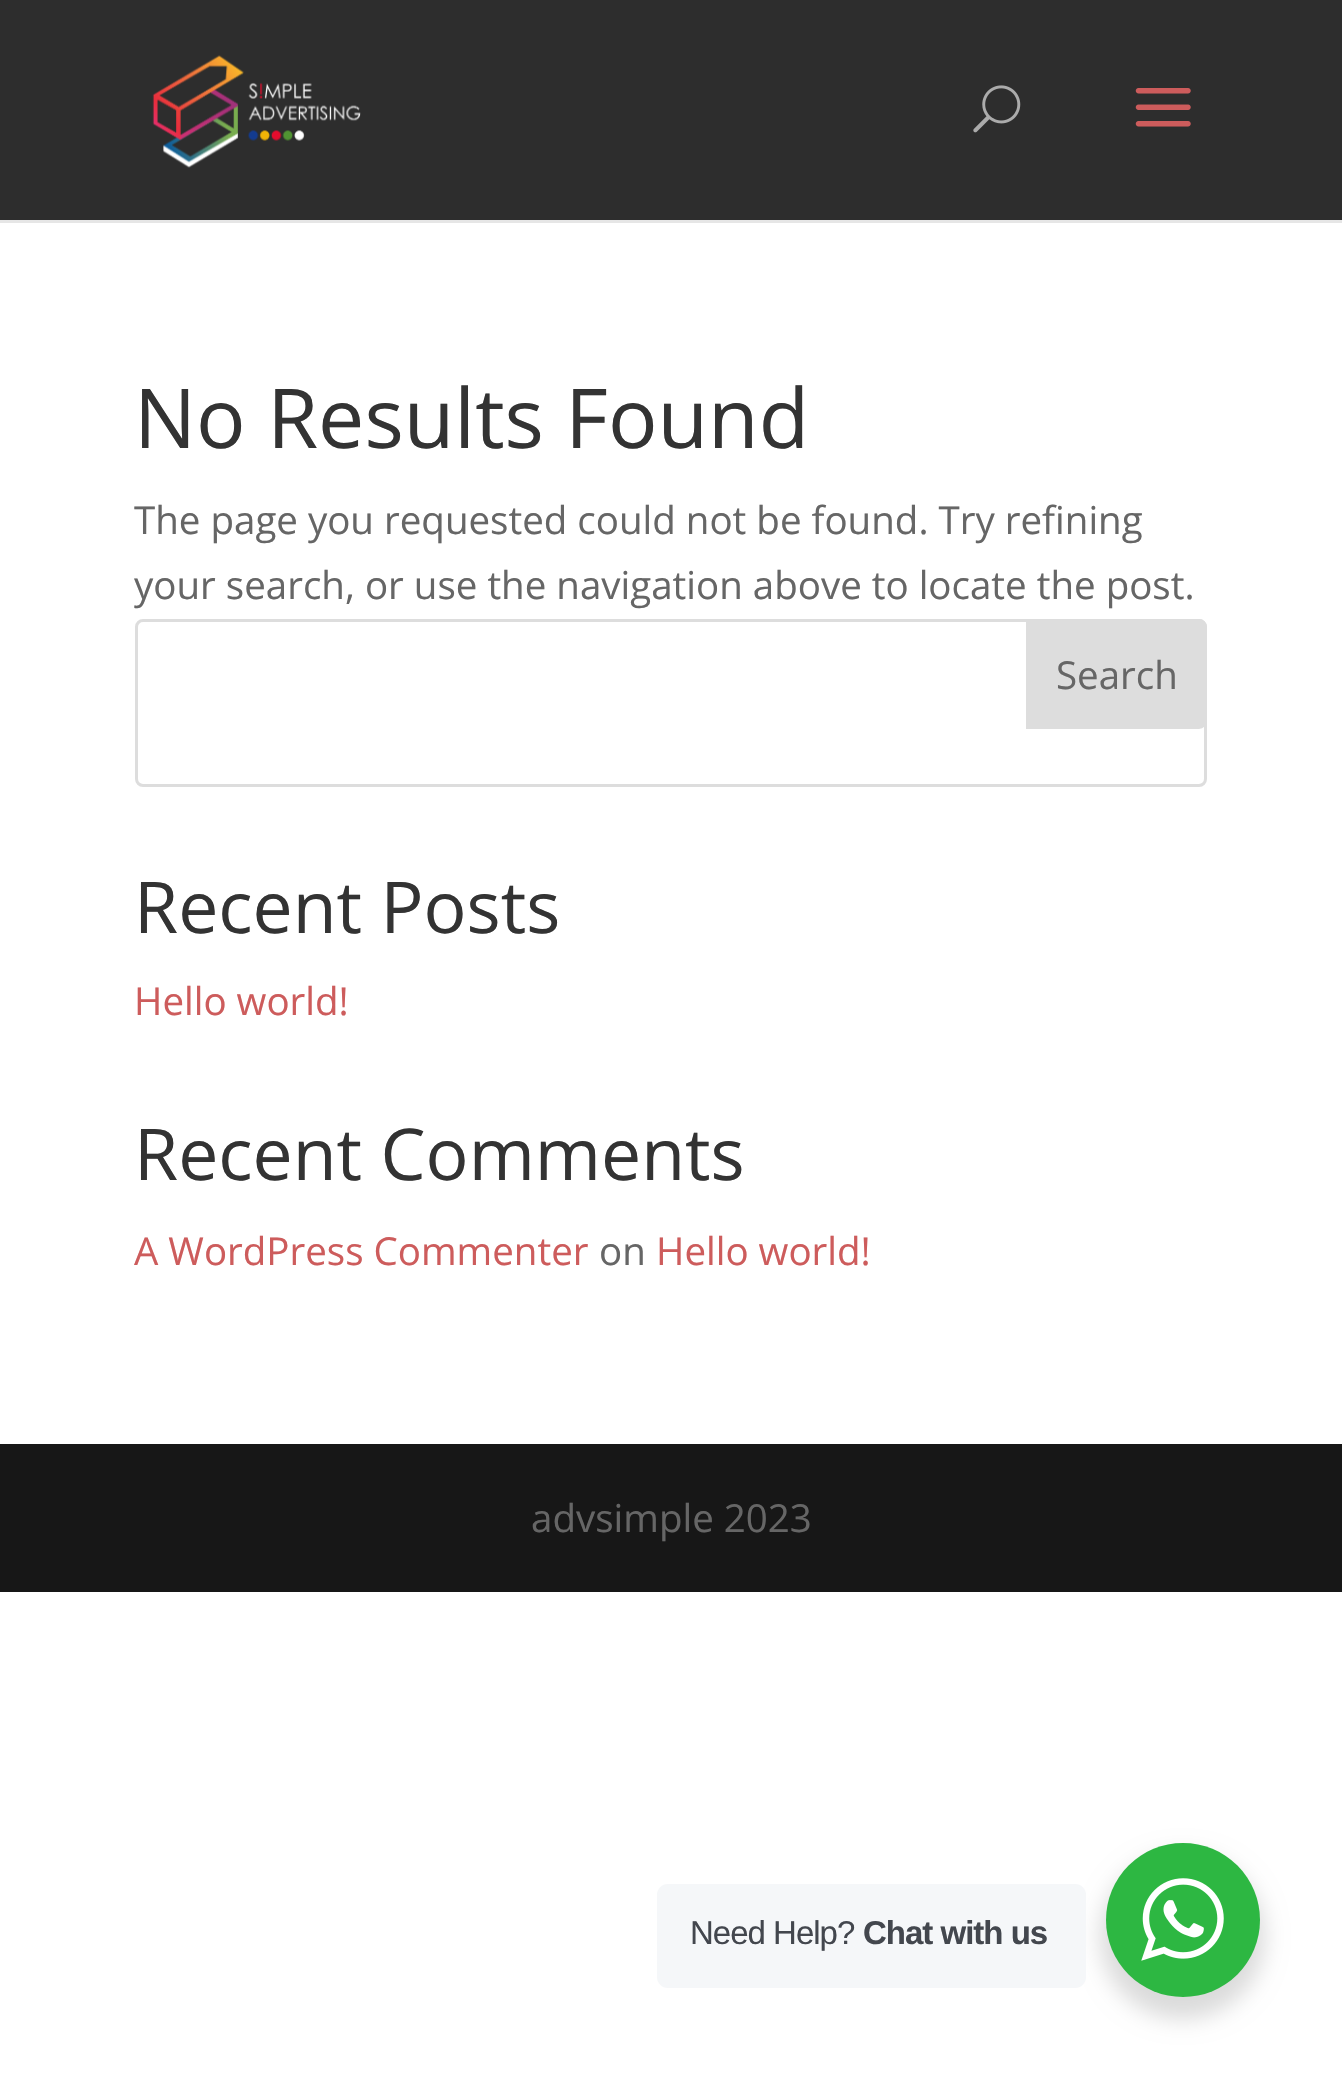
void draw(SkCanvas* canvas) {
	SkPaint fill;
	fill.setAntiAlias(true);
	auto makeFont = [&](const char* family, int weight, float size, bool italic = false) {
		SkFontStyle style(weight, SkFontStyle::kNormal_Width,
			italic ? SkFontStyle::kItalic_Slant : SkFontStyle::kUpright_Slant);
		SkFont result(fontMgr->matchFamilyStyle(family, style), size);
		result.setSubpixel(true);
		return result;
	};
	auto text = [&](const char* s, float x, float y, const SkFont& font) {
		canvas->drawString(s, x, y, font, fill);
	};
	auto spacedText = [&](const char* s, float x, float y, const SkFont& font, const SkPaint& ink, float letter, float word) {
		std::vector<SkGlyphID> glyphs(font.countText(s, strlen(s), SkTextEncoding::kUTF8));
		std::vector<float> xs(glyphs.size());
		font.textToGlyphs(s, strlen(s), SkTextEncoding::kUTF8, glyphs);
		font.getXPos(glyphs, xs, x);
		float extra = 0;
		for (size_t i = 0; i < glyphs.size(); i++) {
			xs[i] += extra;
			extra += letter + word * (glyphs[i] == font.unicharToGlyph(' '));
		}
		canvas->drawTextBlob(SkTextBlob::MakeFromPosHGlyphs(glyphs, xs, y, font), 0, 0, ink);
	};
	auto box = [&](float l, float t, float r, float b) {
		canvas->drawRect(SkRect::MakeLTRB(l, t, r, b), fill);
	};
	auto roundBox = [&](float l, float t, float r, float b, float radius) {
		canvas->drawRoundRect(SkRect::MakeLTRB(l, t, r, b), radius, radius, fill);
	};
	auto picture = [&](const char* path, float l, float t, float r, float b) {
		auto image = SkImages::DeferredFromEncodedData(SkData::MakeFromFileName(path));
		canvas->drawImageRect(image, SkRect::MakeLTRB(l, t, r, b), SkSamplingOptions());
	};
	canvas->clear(0xFFFFFFFF);
	fill.setColor(0xFFE6E6E6);
	box(0, 220, 1342, 223);
	fill.setColor(0xFF2D2D2D);
	box(0, 0, 1342, 220);
	picture("image0.png", 152, 55, 361, 168);
	picture("image1.png", 973, 85, 1021, 133);
	picture("image2.png", 1135, 88, 1191, 127);
	fill.setStyle(SkPaint::kStroke_Style);
	fill.setStrokeWidth(3);
	fill.setColor(0xFFDDDDDD);
	canvas->drawRoundRect(SkRect::MakeLTRB(136.5f, 620.5f, 1205.5f, 785.5f), 6.5f, 6.5f, fill);
	fill.setStyle(SkPaint::kFill_Style);
	canvas->drawPath(SkPathBuilder().moveTo(1027.5f, 620.5f).lineTo(1199, 620.5f).cubicTo(1202.5f, 620.5f, 1205.5f, 623.5f, 1205.5f, 627).lineTo(1205.5f, 721).cubicTo(1205.5f, 724.5f, 1202.5f, 727.5f, 1199, 727.5f).lineTo(1027.5f, 727.5f).close().detach(), fill);
	fill.setStyle(SkPaint::kStroke_Style);
	canvas->drawPath(SkPathBuilder().moveTo(1027.5f, 620.5f).lineTo(1199, 620.5f).cubicTo(1202.5f, 620.5f, 1205.5f, 623.5f, 1205.5f, 627).lineTo(1205.5f, 721).cubicTo(1205.5f, 724.5f, 1202.5f, 727.5f, 1199, 727.5f).lineTo(1027.5f, 727.5f).close().detach(), fill);
	fill.setStyle(SkPaint::kFill_Style);
	fill.setColor(0xFF171717);
	box(0, 1444, 1342, 1592);
	fill.setColor(0x24000000);
	fill.setMaskFilter(SkMaskFilter::MakeBlur(kNormal_SkBlurStyle, 11));
	canvas->drawRoundRect(SkRect::MakeLTRB(1100, 1854, 1265, 2019), 82.5f, 82.5f, fill);
	fill.setMaskFilter(nullptr);
	fill.setColor(0xFFF5F7F9);
	roundBox(657, 1884, 1086, 1988, 11);
	fill.setColor(0xFF2DB742);
	canvas->drawCircle(1183, 1920, 77, fill);
	picture("image3.png", 1141, 1878, 1224, 1961);
	auto font1 = makeFont("Open Sans", 400, 82.5f);
	fill.setColor(0xFF333333);
	text("No Results Found", 134, 448, font1);
	auto font2 = makeFont("Open Sans", 400, 38.5f);
	fill.setColor(0xFF666666);
	text("The page you requested could not be found. Try refining", 134, 534, font2);
	text("your search, or use the navigation above to locate the post.", 134, 599, font2);
	text("Search", 1056, 689, font2);
	auto font3 = makeFont("Open Sans", 400, 71.5f);
	fill.setColor(0xFF333333);
	text("Recent Posts", 134, 933, font3);
	fill.setColor(0xFFCD5C5C);
	text("Hello world!", 134, 1015, font2);
	fill.setColor(0xFF333333);
	text("Recent Comments", 134, 1180, font3);
	fill.setColor(0xFFCD5C5C);
	text("A WordPress Commenter", 134, 1265, font2);
	fill.setColor(0xFF666666);
	text("on", 599, 1265, font2);
	fill.setColor(0xFFCD5C5C);
	text("Hello world!", 656, 1265, font2);
	fill.setColor(0xFF666666);
	text("advsimple 2023", 531, 1532, font2);
	auto font4 = makeFont("Liberation Sans", 400, 33);
	fill.setColor(0xFF43474E);
	spacedText("Need Help?", 690, 1944, font4, fill, -1, 0);
	auto font5 = makeFont("Liberation Sans", 700, 33);
	spacedText("Chat with us", 863, 1944, font5, fill, -1, 0);
}
